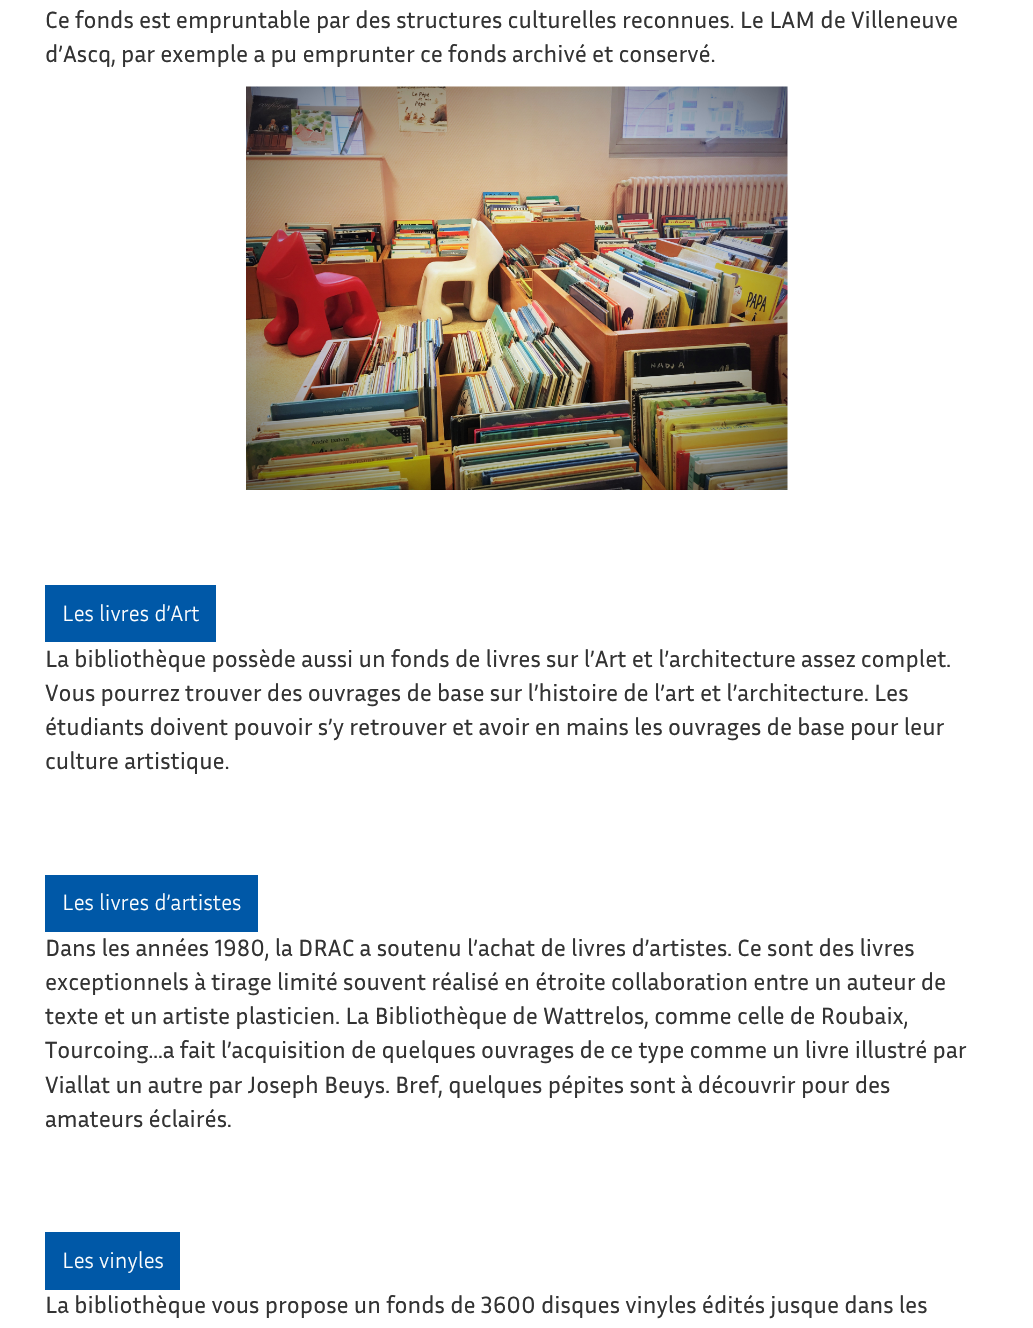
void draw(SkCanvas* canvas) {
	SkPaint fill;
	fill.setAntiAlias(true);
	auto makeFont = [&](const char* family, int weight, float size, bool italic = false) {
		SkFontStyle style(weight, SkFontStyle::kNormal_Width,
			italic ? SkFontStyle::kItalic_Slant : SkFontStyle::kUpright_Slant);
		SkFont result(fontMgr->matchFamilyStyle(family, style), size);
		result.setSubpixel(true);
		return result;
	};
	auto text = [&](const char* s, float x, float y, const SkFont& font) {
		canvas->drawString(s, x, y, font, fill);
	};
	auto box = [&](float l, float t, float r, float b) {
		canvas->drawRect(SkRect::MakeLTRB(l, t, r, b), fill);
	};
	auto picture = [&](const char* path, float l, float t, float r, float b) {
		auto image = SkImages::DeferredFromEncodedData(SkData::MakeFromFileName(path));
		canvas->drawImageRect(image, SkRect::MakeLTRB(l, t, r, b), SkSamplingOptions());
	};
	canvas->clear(0xFFFFFFFF);
	picture("image0.png", 246, 86, 788, 490);
	fill.setColor(0xFF0058A7);
	box(45, 585, 216, 642);
	box(45, 875, 258, 932);
	box(45, 1232, 180, 1290);
	auto font1 = makeFont("Inria Sans", 400, 24);
	fill.setColor(0xFF333333);
	text("Ce fonds est empruntable par des structures culturelles reconnues. Le LAM de Villeneuve", 45, 28, font1);
	text("d’Ascq, par exemple a pu emprunter ce fonds archivé et conservé.", 45, 62, font1);
	auto font2 = makeFont("Inria Sans", 300, 22.5f);
	fill.setColor(0xFFFFFFFF);
	text("Les livres d’Art", 62, 621, font2);
	fill.setColor(0xFF333333);
	text("La bibliothèque possède aussi un fonds de livres sur l’Art et l’architecture assez complet.", 45, 667, font1);
	text("Vous pourrez trouver des ouvrages de base sur l’histoire de l’art et l’architecture. Les", 45, 701, font1);
	text("étudiants doivent pouvoir s’y retrouver et avoir en mains les ouvrages de base pour leur", 45, 735, font1);
	text("culture artistique.", 45, 769, font1);
	fill.setColor(0xFFFFFFFF);
	text("Les livres d’artistes", 62, 910, font2);
	fill.setColor(0xFF333333);
	text("Dans les années 1980, la DRAC a soutenu l’achat de livres d’artistes. Ce sont des livres", 45, 956, font1);
	text("exceptionnels à tirage limité souvent réalisé en étroite collaboration entre un auteur de", 45, 990, font1);
	text("texte et un artiste plasticien. La Bibliothèque de Wattrelos, comme celle de Roubaix,", 45, 1024, font1);
	text("Tourcoing…a fait l’acquisition de quelques ouvrages de ce type comme un livre illustré par", 45, 1058, font1);
	text("Viallat un autre par Joseph Beuys. Bref, quelques pépites sont à découvrir pour des", 45, 1093, font1);
	text("amateurs éclairés.", 45, 1127, font1);
	fill.setColor(0xFFFFFFFF);
	text("Les vinyles", 62, 1268, font2);
	fill.setColor(0xFF333333);
	text("La bibliothèque vous propose un fonds de 3600 disques vinyles édités jusque dans les", 45, 1313, font1);
}
